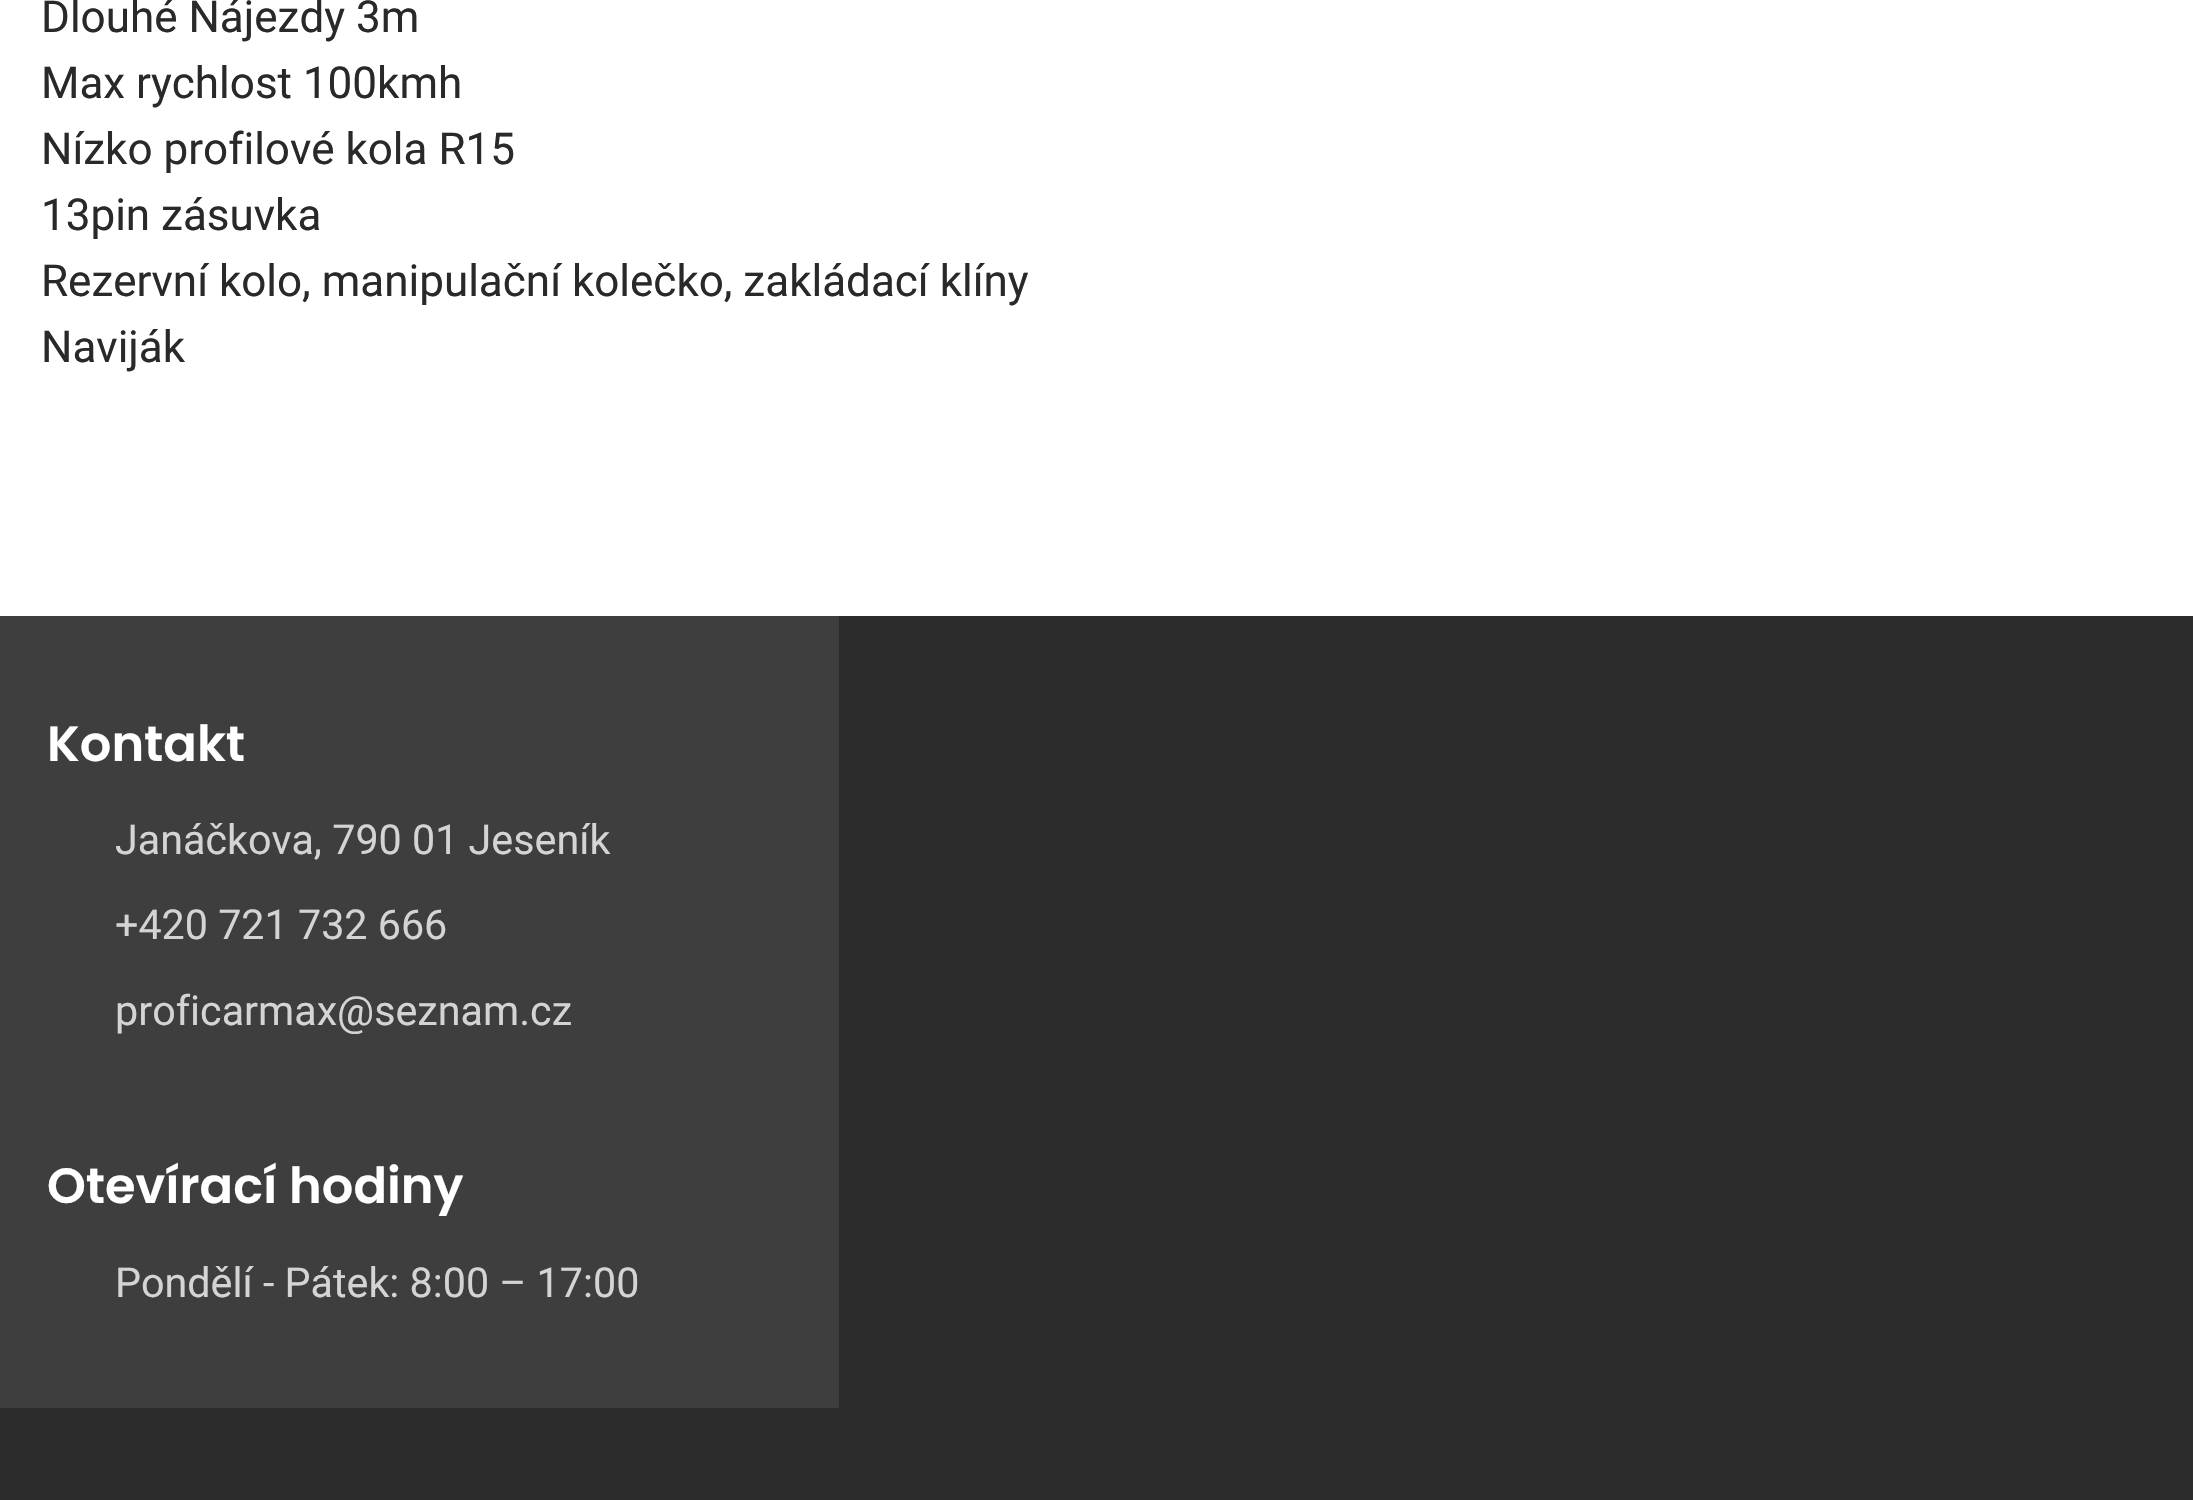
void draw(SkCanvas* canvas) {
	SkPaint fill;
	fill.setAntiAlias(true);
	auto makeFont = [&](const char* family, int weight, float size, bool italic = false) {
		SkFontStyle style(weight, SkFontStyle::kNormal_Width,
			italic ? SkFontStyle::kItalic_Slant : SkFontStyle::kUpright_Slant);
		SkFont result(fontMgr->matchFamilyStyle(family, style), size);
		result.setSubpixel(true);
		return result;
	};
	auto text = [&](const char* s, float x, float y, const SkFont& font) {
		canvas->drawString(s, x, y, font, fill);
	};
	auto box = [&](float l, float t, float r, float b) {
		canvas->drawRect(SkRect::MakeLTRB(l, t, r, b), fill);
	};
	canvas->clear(0xFFFFFFFF);
	fill.setColor(0xFF2C2C2C);
	box(0, 616, 2193, 1500);
	fill.setColor(0xFF3E3E3E);
	box(0, 616, 839, 1408);
	auto font1 = makeFont("Roboto", 400, 44);
	fill.setColor(0xFF292929);
	text("Dlouhé Nájezdy 3m", 41, 32, font1);
	text("Max rychlost 100kmh", 41, 98, font1);
	text("Nízko profilové kola R15", 41, 164, font1);
	text("13pin zásuvka", 41, 230, font1);
	text("Rezervní kolo, manipulační kolečko, zakládací klíny", 41, 296, font1);
	text("Naviják", 41, 362, font1);
	auto font2 = makeFont("Poppins", 600, 49.5f);
	fill.setColor(0xFFFFFFFF);
	text("Kontakt", 47, 761, font2);
	auto font3 = makeFont("Roboto", 400, 41.25f);
	fill.setColor(0xFFD4D4D4);
	text("Janáčkova, 790 01 Jeseník", 115, 854, font3);
	text("+420 721 732 666", 115, 939, font3);
	text("proficarmax@seznam.cz", 115, 1025, font3);
	fill.setColor(0xFFFFFFFF);
	text("Otevírací hodiny", 47, 1203, font2);
	fill.setColor(0xFFD4D4D4);
	text("Pondělí - Pátek: 8:00 – 17:00", 115, 1297, font3);
}
